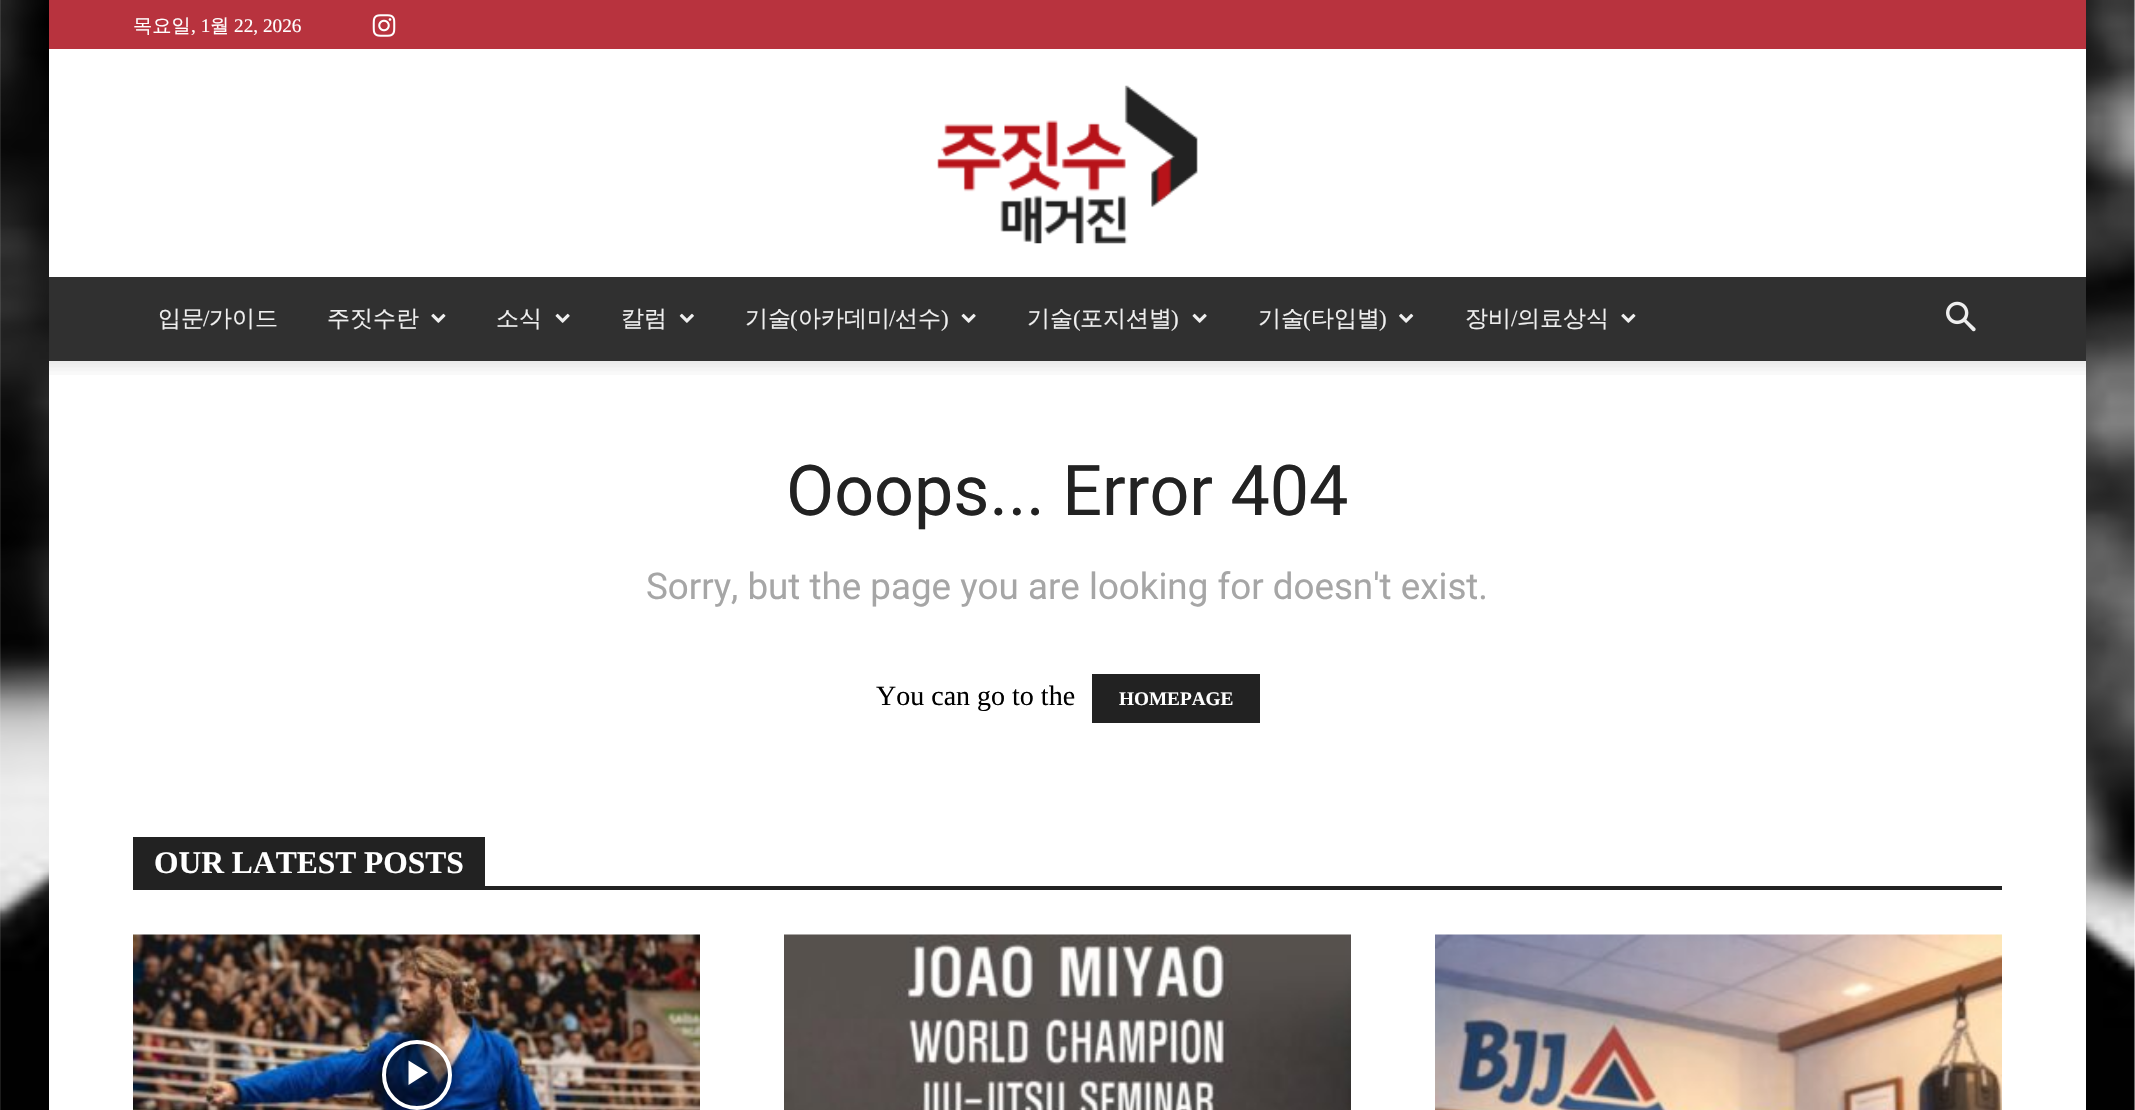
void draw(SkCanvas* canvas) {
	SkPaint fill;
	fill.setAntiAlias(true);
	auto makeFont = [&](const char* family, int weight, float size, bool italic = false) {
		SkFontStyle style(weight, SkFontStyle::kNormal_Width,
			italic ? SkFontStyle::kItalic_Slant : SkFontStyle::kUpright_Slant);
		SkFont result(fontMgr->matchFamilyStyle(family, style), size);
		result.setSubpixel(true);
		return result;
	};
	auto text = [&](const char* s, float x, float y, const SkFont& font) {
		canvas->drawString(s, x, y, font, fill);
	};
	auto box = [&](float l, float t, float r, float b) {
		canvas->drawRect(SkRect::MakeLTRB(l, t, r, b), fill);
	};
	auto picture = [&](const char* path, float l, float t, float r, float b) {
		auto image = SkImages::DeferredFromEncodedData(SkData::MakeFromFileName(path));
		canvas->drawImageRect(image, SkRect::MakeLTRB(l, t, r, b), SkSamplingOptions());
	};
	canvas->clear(0xFFFFFFFF);
	picture("image0.png", 0, 0, 2135, 1110);
	fill.setColor(0xFFB8333E);
	box(49, 0, 2086, 49);
	picture("image1.png", 372, 14, 396, 37);
	fill.setColor(0xFFFFFFFF);
	box(49, 49, 2086, 277);
	picture("image2.png", 937, 85, 1198, 244);
	fill.setColor(0xFF303030);
	box(49, 277, 2086, 361);
	picture("image3.png", 431, 313, 446, 323);
	picture("image4.png", 555, 313, 570, 323);
	picture("image5.png", 679, 313, 694, 323);
	picture("image4.png", 961, 313, 976, 323);
	picture("image4.png", 1192, 313, 1207, 323);
	picture("image6.png", 1399, 313, 1414, 323);
	picture("image3.png", 1621, 313, 1636, 323);
	picture("image7.png", 1946, 301, 1976, 332);
	fill.setColor(0xFFFFFFFF);
	box(49, 361, 2086, 1110);
	picture("image8.png", 49, 361, 2086, 375);
	fill.setColor(0xFF222222);
	box(1092, 674, 1260, 723);
	box(133, 886, 2002, 890);
	box(133, 837, 485, 886);
	picture("image9.png", 133, 934, 700, 1110);
	canvas->save();
	canvas->clipPath(SkPathBuilder(SkPathFillType::kEvenOdd).moveTo(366, 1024).lineTo(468, 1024).lineTo(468, 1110).lineTo(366, 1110).close().moveTo(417, 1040).cubicTo(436.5f, 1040, 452, 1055.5f, 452, 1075).cubicTo(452, 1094.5f, 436.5f, 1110, 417, 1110).cubicTo(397.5f, 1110, 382, 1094.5f, 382, 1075).cubicTo(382, 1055.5f, 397.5f, 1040, 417, 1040).close().detach(), true);
	fill.setColor(0x66000000);
	fill.setMaskFilter(SkMaskFilter::MakeBlur(kNormal_SkBlurStyle, 5));
	canvas->drawRoundRect(SkRect::MakeLTRB(382, 1040, 452, 1110), 35, 35, fill);
	fill.setMaskFilter(nullptr);
	canvas->restore();
	fill.setColor(0x7A000000);
	canvas->drawCircle(417, 1075, 33, fill);
	fill.setStyle(SkPaint::kStroke_Style);
	fill.setStrokeWidth(4);
	fill.setColor(0xFFFFFFFF);
	canvas->drawCircle(417, 1075, 33, fill);
	fill.setStyle(SkPaint::kFill_Style);
	canvas->drawPath(SkPathBuilder().moveTo(408.5f, 1060.5f).lineTo(408.5f, 1085).lineTo(428, 1072.5f).close().detach(), fill);
	picture("image10.png", 784, 934, 1351, 1110);
	picture("image11.png", 1435, 934, 2002, 1110);
	auto font1 = makeFont("WenQuanYi Zen Hei", 500, 19.25f);
	text("목요일", 133, 32, font1);
	auto font2 = makeFont("Liberation Serif", 400, 19.25f);
	text(", 1", 191, 32, font2);
	text("월", 210, 32, font1);
	text("22, 2026", 234, 32, font2);
	auto font3 = makeFont("WenQuanYi Zen Hei", 500, 23);
	fill.setColor(0xFFEFEFEF);
	text("입문", 158, 326, font3);
	auto font4 = makeFont("Liberation Serif", 400, 23);
	text("/", 203, 326, font4);
	text("가이드", 209, 326, font3);
	text("주짓수란", 327, 326, font3);
	text("소식", 496, 326, font3);
	text("칼럼", 621, 326, font3);
	text("기술", 745, 326, font3);
	text("(", 790, 326, font4);
	text("아카데미", 798, 326, font3);
	text("/", 889, 326, font4);
	text("선수", 895, 326, font3);
	text(")", 941, 326, font4);
	text("기술", 1027, 326, font3);
	text("(", 1073, 326, font4);
	text("포지션별", 1080, 326, font3);
	text(")", 1171, 326, font4);
	text("기술", 1258, 326, font3);
	text("(", 1303, 326, font4);
	text("타입별", 1311, 326, font3);
	text(")", 1379, 326, font4);
	text("장비", 1465, 326, font3);
	text("/", 1511, 326, font4);
	text("의료상식", 1517, 326, font3);
	auto font5 = makeFont("Roboto", 400, 70);
	fill.setColor(0xFF222222);
	text("Ooops... Error 404", 786, 515, font5);
	auto font6 = makeFont("Roboto", 400, 36.75f);
	fill.setColor(0xFFA6A6A6);
	text("Sorry, but the page you are looking for doesn't exist.", 646, 599, font6);
	auto font7 = makeFont("Liberation Serif", 400, 28);
	fill.setColor(0xFF000000);
	text("You can go to the", 876, 705, font7);
	auto font8 = makeFont("Liberation Serif", 700, 19.25f);
	fill.setColor(0xFFFFFFFF);
	text("HOMEPAGE", 1119, 705, font8);
	auto font9 = makeFont("Liberation Serif", 700, 31.5f);
	text("OUR LATEST POSTS", 154, 873, font9);
}
